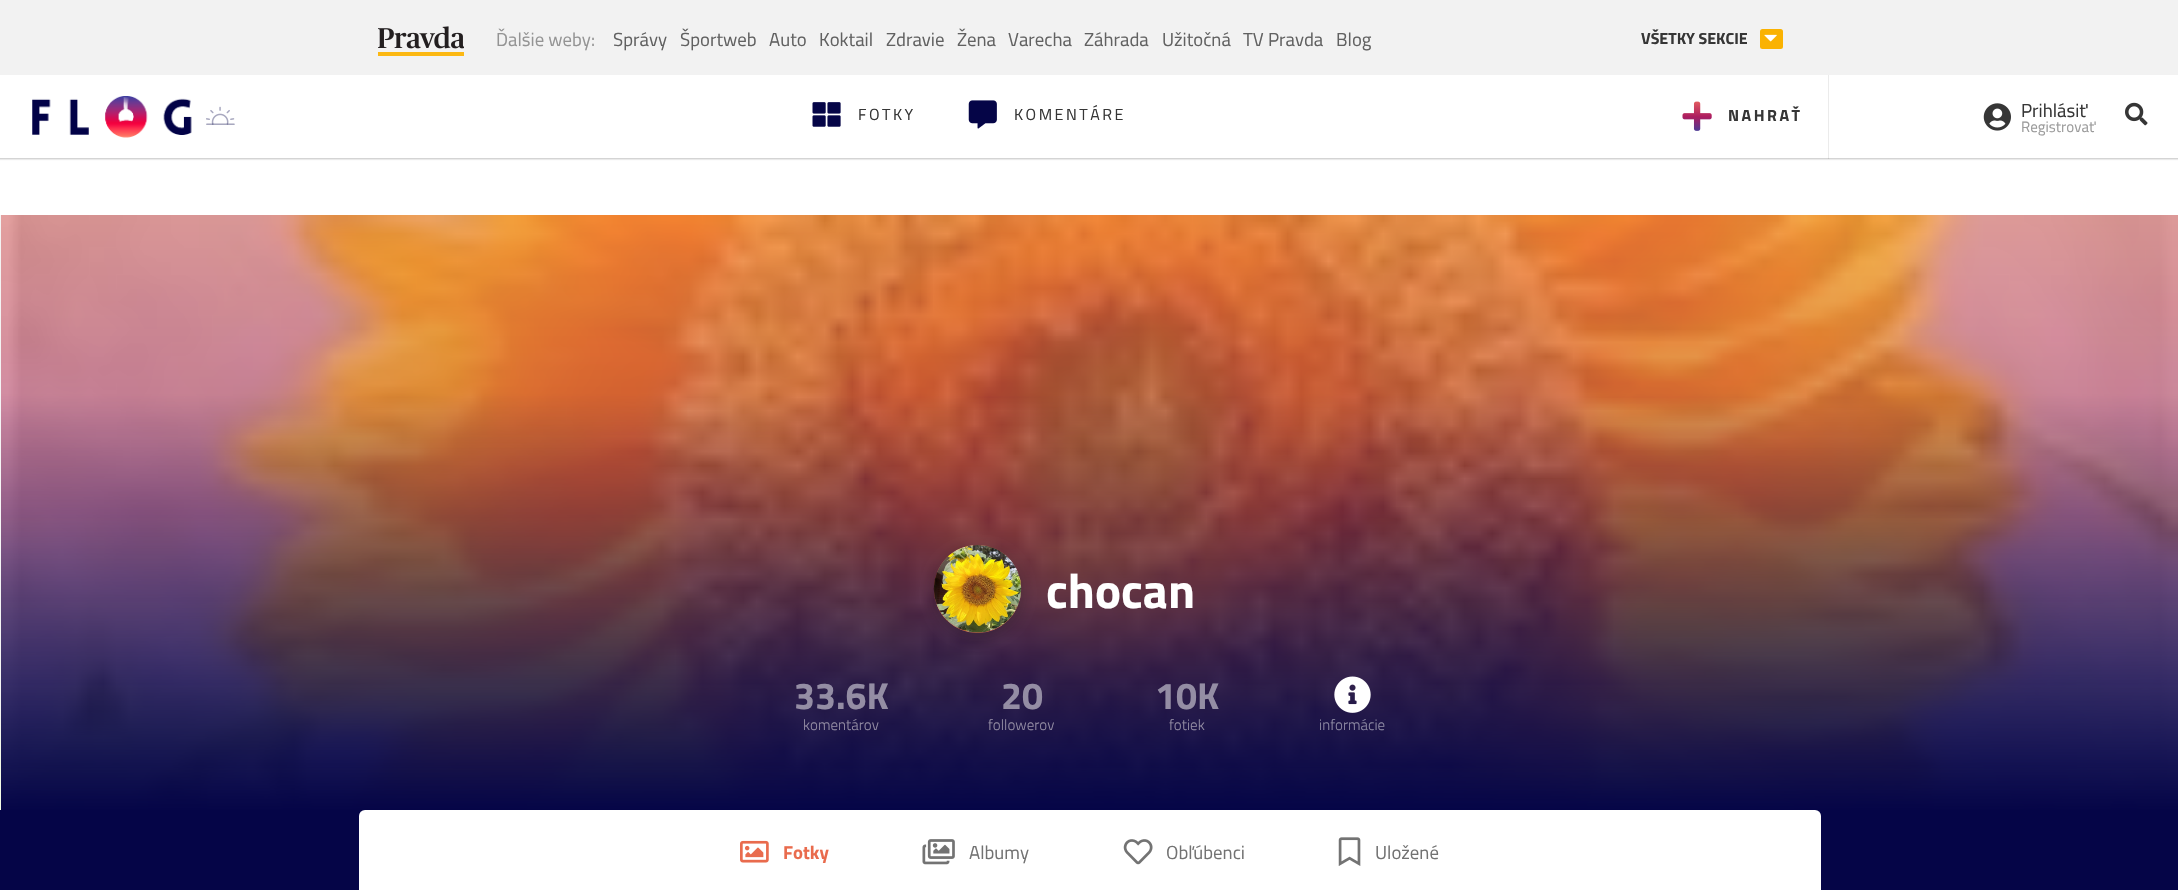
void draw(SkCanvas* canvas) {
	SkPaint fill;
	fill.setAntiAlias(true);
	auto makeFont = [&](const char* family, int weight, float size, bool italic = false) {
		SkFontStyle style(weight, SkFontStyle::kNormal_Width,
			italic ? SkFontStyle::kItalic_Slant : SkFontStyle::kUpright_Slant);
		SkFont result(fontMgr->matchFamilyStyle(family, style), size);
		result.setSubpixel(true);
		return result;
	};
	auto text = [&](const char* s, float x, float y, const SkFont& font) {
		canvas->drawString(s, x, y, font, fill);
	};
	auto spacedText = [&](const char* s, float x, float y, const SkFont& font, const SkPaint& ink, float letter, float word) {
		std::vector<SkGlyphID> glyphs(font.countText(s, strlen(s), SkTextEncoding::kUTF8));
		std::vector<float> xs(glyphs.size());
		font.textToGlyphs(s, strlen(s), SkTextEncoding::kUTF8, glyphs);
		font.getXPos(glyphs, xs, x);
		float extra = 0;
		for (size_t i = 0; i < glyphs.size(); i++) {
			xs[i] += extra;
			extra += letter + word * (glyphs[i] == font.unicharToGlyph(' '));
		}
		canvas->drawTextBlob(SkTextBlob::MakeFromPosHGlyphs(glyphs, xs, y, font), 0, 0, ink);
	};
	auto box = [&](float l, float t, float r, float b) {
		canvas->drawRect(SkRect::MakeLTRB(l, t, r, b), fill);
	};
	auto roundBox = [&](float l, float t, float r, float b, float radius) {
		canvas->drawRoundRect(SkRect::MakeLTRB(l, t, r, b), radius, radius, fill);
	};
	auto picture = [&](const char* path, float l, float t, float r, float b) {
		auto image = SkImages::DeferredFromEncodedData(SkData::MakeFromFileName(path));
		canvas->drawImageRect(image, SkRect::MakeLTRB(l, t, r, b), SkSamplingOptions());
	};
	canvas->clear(0xFFFFFFFF);
	fill.setColor(0xFFF2F2F2);
	box(0, 0, 2178, 75);
	picture("image0.png", 378, 26, 464, 56);
	fill.setColor(0xFFFAB201);
	roundBox(1760, 29, 1783, 49, 2.5f);
	picture("image1.png", 1764, 34, 1777, 42);
	picture("image2.png", 32, 96, 192, 138);
	picture("image4.png", 123, 101, 128, 110);
	picture("image3.png", 123, 97, 129, 110);
	picture("image5.png", 206, 106, 235, 125);
	picture("image6.png", 812, 102, 841, 127);
	picture("image7.png", 968, 100, 997, 129);
	fill.setColor(0xFFEBEBEB);
	box(1828, 75, 1829, 159);
	picture("image8.png", 1682, 101, 1712, 131);
	picture("image9.png", 1983, 103, 2011, 131);
	picture("image10.png", 2125, 102, 2148, 126);
	fill.setColor(0x1A000000);
	fill.setMaskFilter(SkMaskFilter::MakeBlur(kNormal_SkBlurStyle, 0.5f));
	canvas->drawRect(SkRect::MakeLTRB(-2, 159, 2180, 160), fill);
	fill.setMaskFilter(nullptr);
	fill.setColor(0x33363636);
	box(0, 158, 2178, 159);
	picture("image11.png", 0, 215, 2178, 810);
	fill.setColor(0x2E171716);
	fill.setMaskFilter(SkMaskFilter::MakeBlur(kNormal_SkBlurStyle, 6));
	canvas->drawRoundRect(SkRect::MakeLTRB(933, 548, 1023, 638), 45, 45, fill);
	fill.setMaskFilter(nullptr);
	fill.setColor(0xFFE96B4D);
	roundBox(934, 545, 1021, 633, 43.5f);
	picture("image12.png", 933, 545, 1022, 633);
	fill.setStyle(SkPaint::kStroke_Style);
	fill.setStrokeWidth(1);
	fill.setColor(0x1A363636);
	canvas->drawRoundRect(SkRect::MakeLTRB(934.5f, 545.5f, 1020.5f, 632.5f), 43, 43, fill);
	picture("image13.png", 1334, 676, 1371, 713);
	fill.setStyle(SkPaint::kFill_Style);
	fill.setColor(0xFF050547);
	box(0, 810, 2178, 890);
	fill.setColor(0xFFFFFFFF);
	roundBox(359, 810, 1821, 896, 6);
	picture("image14.png", 740, 840, 769, 863);
	picture("image15.png", 922, 839, 955, 865);
	picture("image16.png", 1123, 839, 1153, 865);
	picture("image17.png", 1338, 837, 1361, 866);
	auto font1 = makeFont("Titillium Web", 400, 18.75f);
	fill.setColor(0xFF949494);
	text("Ďalšie weby:", 496, 46, font1);
	fill.setColor(0xFF616161);
	text("Správy", 613, 46, font1);
	text("Športweb", 680, 46, font1);
	text("Auto", 769, 46, font1);
	text("Koktail", 819, 46, font1);
	text("Zdravie", 886, 46, font1);
	text("Žena", 957, 46, font1);
	text("Varecha", 1008, 46, font1);
	text("Záhrada", 1084, 46, font1);
	text("Užitočná", 1162, 46, font1);
	text("TV Pravda", 1243, 46, font1);
	text("Blog", 1336, 46, font1);
	auto font2 = makeFont("Titillium Web", 700, 16);
	fill.setColor(0xFF363636);
	text("VŠETKY SEKCIE", 1641, 44, font2);
	auto font3 = makeFont("Titillium Web", 400, 16);
	spacedText("FOTKY", 858, 120, font3, fill, 2.5f, 0);
	spacedText("KOMENTÁRE", 1014, 120, font3, fill, 2.5f, 0);
	spacedText("NAHRAŤ", 1728, 121, font2, fill, 2.5f, 0);
	text("Prihlásiť", 2021, 117, font1);
	auto font4 = makeFont("Titillium Web", 400, 15);
	fill.setColor(0xFF9B9B9B);
	text("Registrovať", 2021, 132, font4);
	auto font5 = makeFont("Titillium Web", 700, 49);
	fill.setColor(0xFFFFFFFF);
	text("chocan", 1046, 608, font5);
	auto font6 = makeFont("Titillium Web", 700, 37.5f);
	fill.setColor(0xFF948DA4);
	text("33.6K", 794, 709, font6);
	auto font7 = makeFont("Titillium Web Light", 300, 15);
	text("komentárov", 803, 730, font7);
	text("20", 1001, 709, font6);
	text("followerov", 988, 730, font7);
	text("10K", 1155, 709, font6);
	text("fotiek", 1169, 730, font7);
	fill.setColor(0xFF8E8AA4);
	text("informácie", 1319, 730, font7);
	auto font8 = makeFont("Titillium Web", 700, 18.75f);
	fill.setColor(0xFFE96B4D);
	text("Fotky", 783, 859, font8);
	fill.setColor(0xFF727272);
	text("Albumy", 969, 859, font1);
	text("Obľúbenci", 1166, 859, font1);
	text("Uložené", 1375, 859, font1);
}
